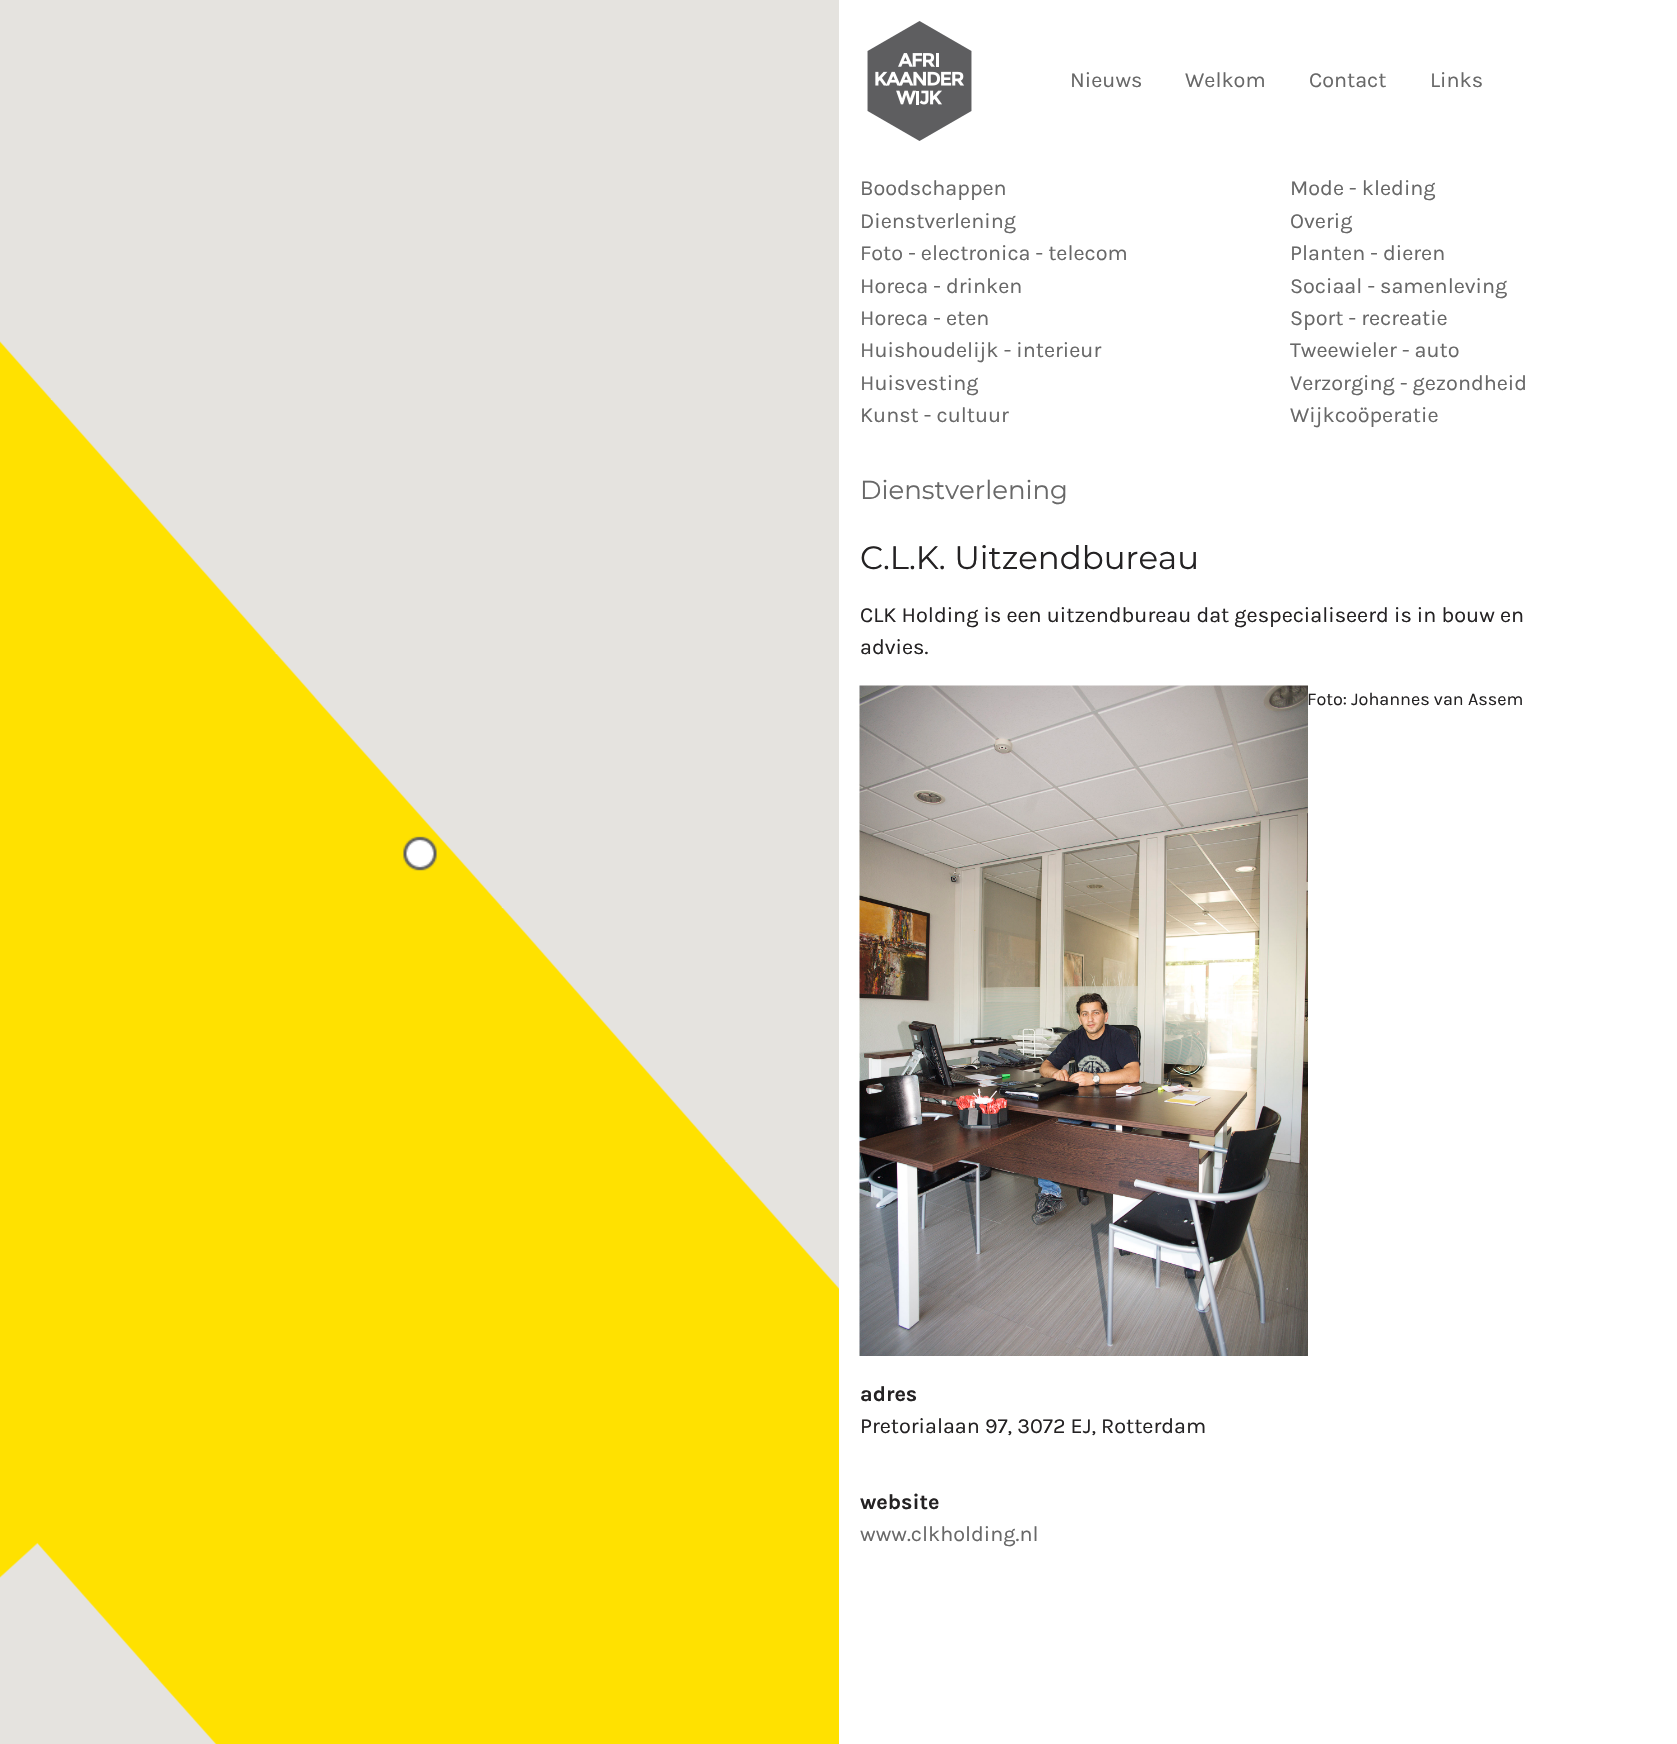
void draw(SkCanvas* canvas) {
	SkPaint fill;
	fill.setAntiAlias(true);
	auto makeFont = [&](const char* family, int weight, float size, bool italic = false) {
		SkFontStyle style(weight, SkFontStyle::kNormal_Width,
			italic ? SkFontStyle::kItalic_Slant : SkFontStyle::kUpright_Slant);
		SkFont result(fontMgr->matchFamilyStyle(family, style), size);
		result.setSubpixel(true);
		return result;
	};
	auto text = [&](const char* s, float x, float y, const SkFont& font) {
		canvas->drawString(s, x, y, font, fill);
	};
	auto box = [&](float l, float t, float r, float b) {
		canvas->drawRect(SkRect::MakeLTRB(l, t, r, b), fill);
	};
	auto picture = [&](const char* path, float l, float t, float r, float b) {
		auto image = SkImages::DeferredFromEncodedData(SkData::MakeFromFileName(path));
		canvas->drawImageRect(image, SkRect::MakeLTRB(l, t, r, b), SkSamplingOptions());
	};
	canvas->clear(0xFFFFFFFF);
	fill.setColor(0xFFE5E3DF);
	box(0, 0, 839, 1744);
	picture("image0.png", 0, 341, 839, 1744);
	picture("image1.png", 403, 836, 437, 871);
	picture("image2.png", 867, 21, 972, 141);
	picture("image3.png", 859, 685, 1308, 1356);
	auto font1 = makeFont("Karla", 400, 21.6f);
	fill.setColor(0xFF686868);
	text("Nieuws", 1070, 87, font1);
	text("Welkom", 1185, 87, font1);
	text("Contact", 1309, 87, font1);
	text("Links", 1430, 87, font1);
	text("Boodschappen", 860, 195, font1);
	text("Mode - kleding", 1290, 195, font1);
	text("Dienstverlening", 860, 228, font1);
	text("Overig", 1290, 228, font1);
	text("Foto - electronica - telecom", 860, 260, font1);
	text("Planten - dieren", 1290, 260, font1);
	text("Horeca - drinken", 860, 293, font1);
	text("Sociaal - samenleving", 1290, 293, font1);
	text("Horeca - eten", 860, 325, font1);
	text("Sport - recreatie", 1290, 325, font1);
	text("Huishoudelijk - interieur", 860, 357, font1);
	text("Tweewieler - auto", 1290, 357, font1);
	text("Huisvesting", 860, 390, font1);
	text("Verzorging - gezondheid", 1290, 390, font1);
	text("Kunst - cultuur", 860, 422, font1);
	text("Wijkcoöperatie", 1290, 422, font1);
	auto font2 = makeFont("Montserrat", 400, 26);
	text("Dienstverlening", 860, 499, font2);
	auto font3 = makeFont("Montserrat", 400, 32.4f);
	fill.setColor(0xFF242223);
	text("C.L.K. Uitzendbureau", 860, 569, font3);
	text("CLK Holding is een uitzendbureau dat gespecialiseerd is in bouw en", 860, 622, font1);
	text("advies.", 860, 654, font1);
	auto font4 = makeFont("Karla", 400, 18);
	text("Foto: Johannes van Assem", 1307, 705, font4);
	auto font5 = makeFont("Karla", 700, 21.6f);
	text("adres", 860, 1401, font5);
	text("Pretorialaan 97, 3072 EJ, Rotterdam", 860, 1433, font1);
	text("website", 860, 1509, font5);
	fill.setColor(0xFF686868);
	text("www.clkholding.nl", 860, 1541, font1);
}
